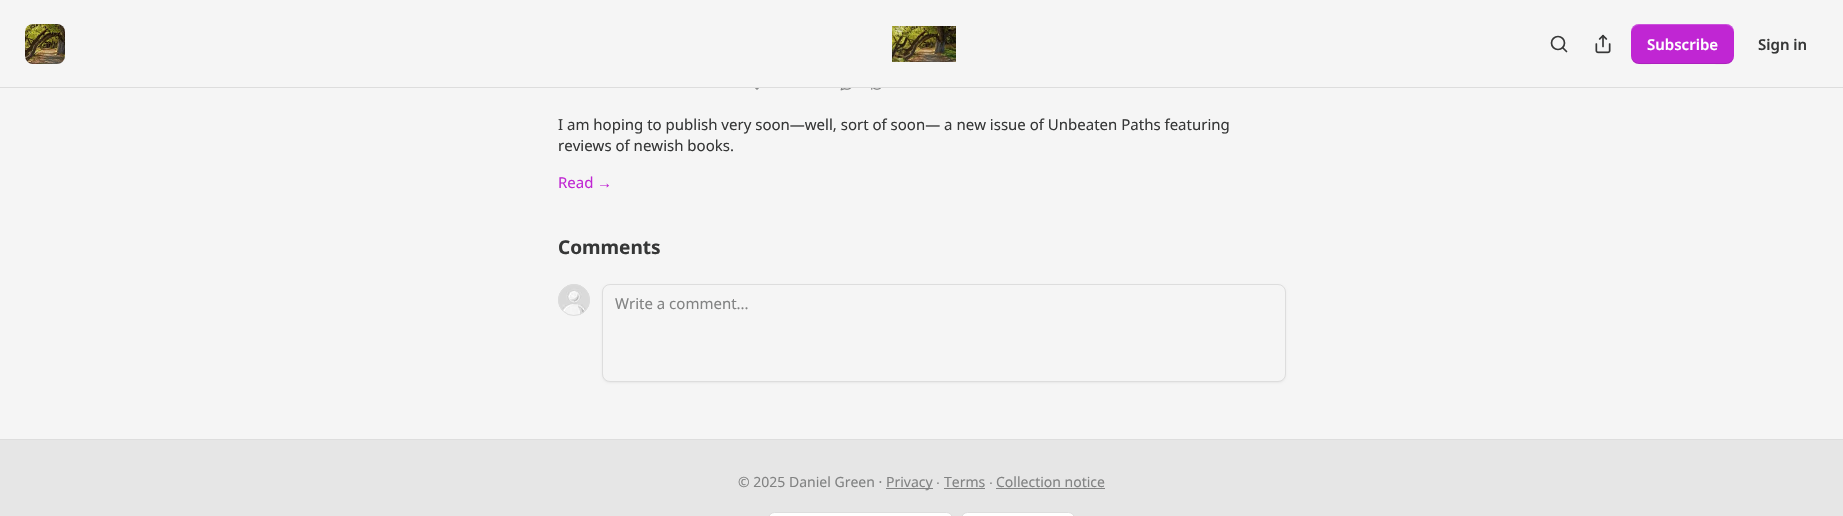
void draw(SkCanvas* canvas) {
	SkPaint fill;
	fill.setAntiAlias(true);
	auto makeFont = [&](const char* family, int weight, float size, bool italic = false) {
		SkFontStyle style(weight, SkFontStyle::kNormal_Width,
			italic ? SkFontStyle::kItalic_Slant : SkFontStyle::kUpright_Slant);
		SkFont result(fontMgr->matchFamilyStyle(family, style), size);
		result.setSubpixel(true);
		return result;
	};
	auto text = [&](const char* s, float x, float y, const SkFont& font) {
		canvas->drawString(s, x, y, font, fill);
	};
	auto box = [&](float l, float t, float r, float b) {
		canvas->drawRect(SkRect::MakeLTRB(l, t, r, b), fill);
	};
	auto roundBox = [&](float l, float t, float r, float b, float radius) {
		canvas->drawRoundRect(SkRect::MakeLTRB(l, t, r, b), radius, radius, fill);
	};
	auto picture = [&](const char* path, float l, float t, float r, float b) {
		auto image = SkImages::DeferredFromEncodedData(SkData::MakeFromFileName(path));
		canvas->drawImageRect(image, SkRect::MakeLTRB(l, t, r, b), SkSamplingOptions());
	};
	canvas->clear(0xFFF5F5F5);
	fill.setColor(0xFFDDDDDD);
	box(0, 87, 1843, 88);
	fill.setColor(0xFFFFFFFF);
	roundBox(25, 24, 65, 64, 8);
	picture("image0.png", 25, 24, 65, 64);
	picture("image1.png", 892, 26, 956, 62);
	fill.setStyle(SkPaint::kStroke_Style);
	fill.setStrokeWidth(1.7f);
	fill.setColor(0xFF363737);
	canvas->drawCircle(1558, 43, 6.5f, fill);
	fill.setStrokeCap(SkPaint::kRound_Cap);
	fill.setStrokeJoin(SkPaint::kRound_Join);
	canvas->drawPath(SkPathBuilder().moveTo(1566.5f, 51.5f).lineTo(1563, 48).detach(), fill);
	picture("image2.png", 1595, 34, 1611, 54);
	fill.setStyle(SkPaint::kFill_Style);
	fill.setColor(0xFFC026D3);
	roundBox(1631, 24, 1734, 64, 8);
	fill.setColor(0x1A000000);
	canvas->drawPath(SkPathBuilder().moveTo(1631, 55).cubicTo(1631, 67, 1645, 64, 1654, 64).lineTo(1712, 64).cubicTo(1720, 64, 1734, 67, 1734, 55).cubicTo(1734, 59, 1730, 63, 1726, 63).lineTo(1639, 63).cubicTo(1635, 63, 1631, 59, 1631, 55).close().detach(), fill);
	fill.setColor(0x33FFFFFF);
	canvas->drawPath(SkPathBuilder().moveTo(1639, 25).lineTo(1726, 25).cubicTo(1730, 25, 1734, 29, 1734, 33).cubicTo(1734, 21, 1720, 24, 1712, 24).lineTo(1654, 24).cubicTo(1645, 24, 1631, 21, 1631, 33).cubicTo(1631, 29, 1635, 25, 1639, 25).close().detach(), fill);
	picture("image3.png", 755, 88, 759, 90);
	picture("image4.png", 840, 88, 852, 91);
	picture("image5.png", 871, 88, 881, 90);
	fill.setStyle(SkPaint::kStroke_Style);
	fill.setStrokeWidth(1);
	fill.setStrokeCap(SkPaint::kButt_Cap);
	fill.setStrokeJoin(SkPaint::kMiter_Join);
	fill.setColor(0xFFDDDDDD);
	canvas->drawCircle(574, 300, 15.5f, fill);
	picture("image6.png", 558, 284, 590, 316);
	canvas->drawCircle(574, 300, 15.5f, fill);
	fill.setStyle(SkPaint::kFill_Style);
	fill.setColor(0x0D000000);
	fill.setMaskFilter(SkMaskFilter::MakeBlur(kNormal_SkBlurStyle, 1));
	canvas->drawRoundRect(SkRect::MakeLTRB(602, 285, 1286, 383), 8, 8, fill);
	fill.setMaskFilter(nullptr);
	fill.setColor(0xFFF5F5F5);
	canvas->drawRoundRect(SkRect::MakeLTRB(602.5f, 284.5f, 1285.5f, 381.5f), 7.5f, 7.5f, fill);
	fill.setStyle(SkPaint::kStroke_Style);
	fill.setColor(0xFFDDDDDD);
	canvas->drawRoundRect(SkRect::MakeLTRB(602.5f, 284.5f, 1285.5f, 381.5f), 7.5f, 7.5f, fill);
	fill.setStyle(SkPaint::kFill_Style);
	fill.setColor(0xFFE6E6E6);
	box(0, 440, 1843, 516);
	fill.setColor(0xFFDDDDDD);
	box(0, 439, 1843, 440);
	fill.setColor(0xFF828383);
	box(886, 488, 933, 489);
	box(944, 488, 985, 489);
	box(996, 488, 1105, 489);
	fill.setColor(0xFFFFFFFF);
	canvas->drawRoundRect(SkRect::MakeLTRB(768.5f, 512.5f, 952.5f, 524.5f), 7.5f, 7.5f, fill);
	fill.setStyle(SkPaint::kStroke_Style);
	fill.setColor(0xFFDDDDDD);
	canvas->drawRoundRect(SkRect::MakeLTRB(768.5f, 512.5f, 952.5f, 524.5f), 7.5f, 7.5f, fill);
	fill.setStyle(SkPaint::kFill_Style);
	fill.setColor(0xFFFFFFFF);
	canvas->drawRoundRect(SkRect::MakeLTRB(961.5f, 512.5f, 1074.5f, 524.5f), 7.5f, 7.5f, fill);
	fill.setStyle(SkPaint::kStroke_Style);
	fill.setColor(0xFFDDDDDD);
	canvas->drawRoundRect(SkRect::MakeLTRB(961.5f, 512.5f, 1074.5f, 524.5f), 7.5f, 7.5f, fill);
	auto font1 = makeFont("Noto Sans", 600, 15);
	fill.setStyle(SkPaint::kFill_Style);
	fill.setColor(0xFFFFFFFF);
	text("Subscribe", 1647, 50, font1);
	fill.setColor(0xFF363737);
	text("Sign in", 1758, 50, font1);
	auto font2 = makeFont("Noto Sans", 400, 15);
	text("I am hoping to publish very soon—well, sort of soon— a new issue of Unbeaten Paths featuring", 558, 130, font2);
	text("reviews of newish books.", 558, 151, font2);
	fill.setColor(0xFFC026D3);
	text("Read", 558, 188, font2);
	auto font3 = makeFont("Liberation Sans", 400, 15);
	text("→", 597, 188, font3);
	auto font4 = makeFont("Noto Sans", 700, 19);
	fill.setColor(0xFF363737);
	text("Comments", 558, 254, font4);
	fill.setColor(0xFF828383);
	text("Write a comment...", 615, 309, font2);
	auto font5 = makeFont("Noto Sans", 400, 14);
	text("© 2025 Daniel Green ·", 738, 487, font5);
	text("Privacy", 886, 487, font5);
	auto font6 = makeFont("Liberation Sans", 400, 14);
	text("∙", 936, 487, font6);
	text("Terms", 944, 487, font5);
	text("∙", 989, 487, font6);
	text("Collection notice", 996, 487, font5);
}
